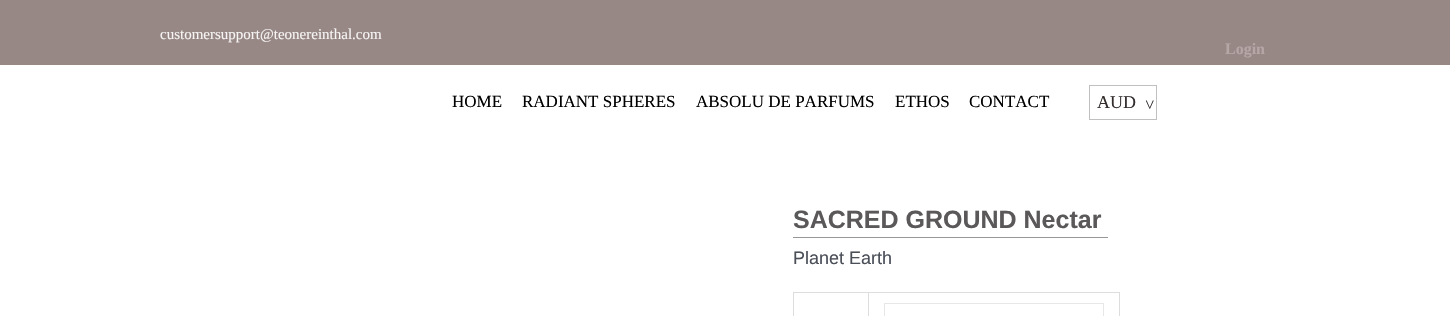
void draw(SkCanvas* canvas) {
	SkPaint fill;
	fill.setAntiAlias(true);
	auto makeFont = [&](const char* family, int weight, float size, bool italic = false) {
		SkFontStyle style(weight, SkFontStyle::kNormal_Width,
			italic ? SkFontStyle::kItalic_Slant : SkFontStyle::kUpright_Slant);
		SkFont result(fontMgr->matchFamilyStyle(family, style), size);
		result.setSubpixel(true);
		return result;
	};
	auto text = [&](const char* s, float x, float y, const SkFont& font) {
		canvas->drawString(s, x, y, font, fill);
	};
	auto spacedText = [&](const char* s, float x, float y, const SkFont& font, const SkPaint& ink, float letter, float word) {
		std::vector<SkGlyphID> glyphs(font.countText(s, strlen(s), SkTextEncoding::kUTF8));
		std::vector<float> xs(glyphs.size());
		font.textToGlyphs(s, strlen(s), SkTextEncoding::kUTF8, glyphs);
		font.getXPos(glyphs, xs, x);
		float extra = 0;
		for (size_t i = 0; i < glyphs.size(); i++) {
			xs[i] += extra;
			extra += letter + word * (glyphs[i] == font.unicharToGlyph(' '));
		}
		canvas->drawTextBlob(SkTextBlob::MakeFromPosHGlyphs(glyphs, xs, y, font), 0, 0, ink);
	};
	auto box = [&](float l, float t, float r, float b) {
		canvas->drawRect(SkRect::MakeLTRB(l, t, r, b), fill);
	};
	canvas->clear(0xFFFFFFFF);
	fill.setColor(0xFF978886);
	box(0, 0, 1450, 65);
	fill.setStyle(SkPaint::kStroke_Style);
	fill.setStrokeWidth(1);
	fill.setColor(0xFFC0C0C0);
	canvas->drawRect(SkRect::MakeLTRB(1089.5f, 85.5f, 1156.5f, 119.5f), fill);
	fill.setStyle(SkPaint::kFill_Style);
	fill.setColor(0xFF999696);
	box(793, 237, 1108, 238);
	fill.setColor(0xFFDDDDDD);
	box(793, 292, 1120, 293);
	box(793, 292, 794, 316);
	box(868, 293, 869, 316);
	box(1119, 293, 1120, 316);
	fill.setStyle(SkPaint::kStroke_Style);
	fill.setColor(0xFFE7E7E7);
	canvas->drawRect(SkRect::MakeLTRB(884.5f, 303.5f, 1103.5f, 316.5f), fill);
	auto font1 = makeFont("Liberation Serif", 400, 15);
	fill.setStyle(SkPaint::kFill_Style);
	fill.setColor(0xFFF6F4F4);
	text("customersupport@teonereinthal.com", 160, 39, font1);
	auto font2 = makeFont("Liberation Serif", 700, 16);
	fill.setColor(0xFFB6A7A7);
	text("Login", 1225, 54, font2);
	auto font3 = makeFont("Liberation Serif", 400, 17);
	fill.setColor(0xFF000000);
	text("HOME", 452, 107, font3);
	text("RADIANT SPHERES", 522, 107, font3);
	text("ABSOLU DE PARFUMS", 696, 107, font3);
	text("ETHOS", 895, 107, font3);
	text("CONTACT", 969, 107, font3);
	auto font4 = makeFont("Liberation Serif", 400, 18);
	fill.setColor(0xFF332D2D);
	text("AUD", 1097, 108, font4);
	canvas->save();
	canvas->rotate(180, 1154, 97);
	spacedText("^", 1154, 97, font4, fill, 7, 0);
	canvas->restore();
	auto font5 = makeFont("Liberation Sans", 700, 25);
	fill.setColor(0xFF5A5858);
	text("SACRED GROUND Nectar", 793, 228, font5);
	auto font6 = makeFont("Liberation Sans", 400, 18);
	fill.setColor(0xFF4B4F58);
	text("Planet Earth", 793, 264, font6);
}
